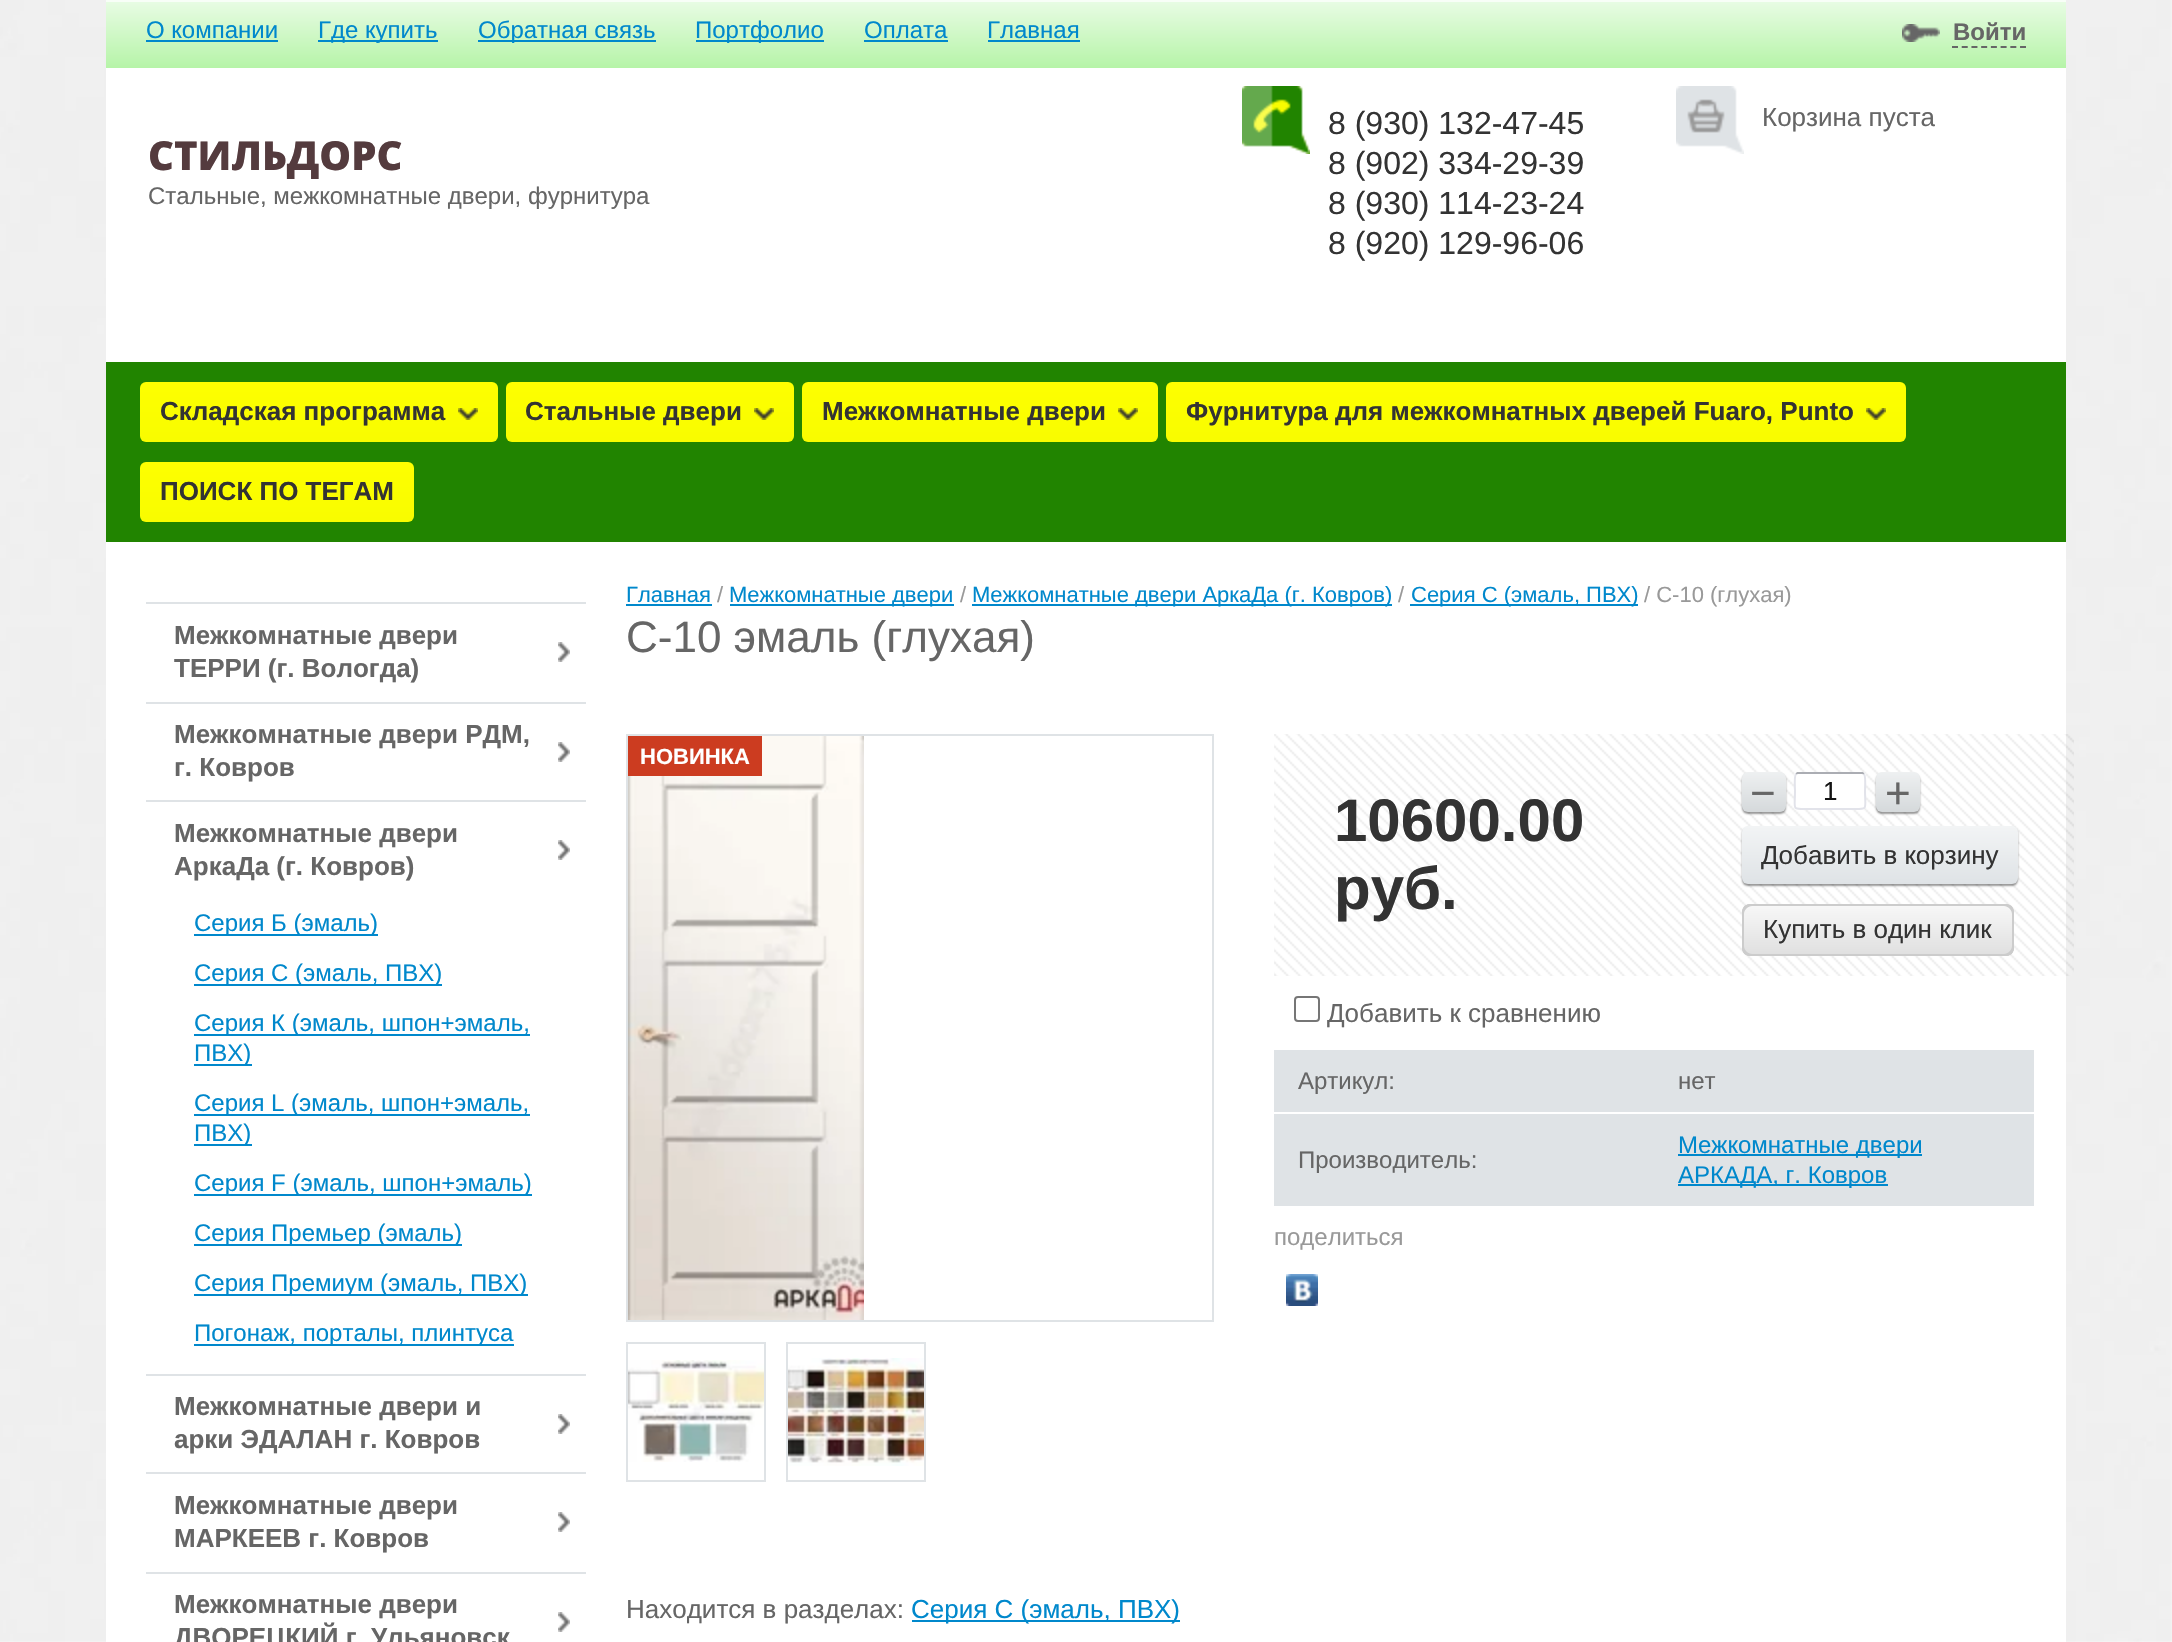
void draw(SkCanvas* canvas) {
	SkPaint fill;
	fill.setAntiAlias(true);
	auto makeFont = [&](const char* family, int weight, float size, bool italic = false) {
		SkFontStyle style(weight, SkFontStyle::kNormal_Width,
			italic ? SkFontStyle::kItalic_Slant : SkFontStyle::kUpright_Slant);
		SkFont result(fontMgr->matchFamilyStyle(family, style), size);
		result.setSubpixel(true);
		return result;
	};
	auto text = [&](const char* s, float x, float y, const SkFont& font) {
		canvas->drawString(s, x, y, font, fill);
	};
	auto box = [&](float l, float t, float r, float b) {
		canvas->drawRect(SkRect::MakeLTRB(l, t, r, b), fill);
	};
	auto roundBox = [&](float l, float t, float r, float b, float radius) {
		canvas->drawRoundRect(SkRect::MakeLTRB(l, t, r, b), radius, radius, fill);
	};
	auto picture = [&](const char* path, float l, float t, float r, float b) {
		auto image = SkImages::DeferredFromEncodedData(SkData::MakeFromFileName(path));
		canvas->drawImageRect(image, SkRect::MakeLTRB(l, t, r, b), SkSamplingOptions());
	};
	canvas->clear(0xFFFFFFFF);
	picture("image0.png", 0, 0, 2172, 1642);
	fill.setColor(0xFFFFFFFF);
	box(106, 68, 2066, 1642);
	{
		const SkColor colors[] = {0xFFE9FCE5, 0xFFB6F4A8};
		const float stops[] = {0, 1};
		const SkPoint ends[] = {{1086, 0}, {1086, 68}};
		fill.setShader(SkGradientShader::MakeLinear(ends, colors, stops, 2, SkTileMode::kClamp));
		fill.setAlpha(255);
	}
	box(106, 2, 2066, 68);
	fill.setShader(nullptr);
	fill.setColor(0xFFF8FEF7);
	box(106, 0, 2066, 2);
	fill.setColor(0xFF0088CC);
	box(146, 40, 278, 42);
	box(318, 40, 438, 42);
	box(478, 40, 656, 42);
	box(696, 40, 824, 42);
	box(864, 40, 948, 42);
	box(988, 40, 1080, 42);
	picture("image1.png", 1902, 24, 1940, 42);
	fill.setStyle(SkPaint::kStroke_Style);
	fill.setStrokeWidth(2);
	fill.setColor(0xFF666666);
	fill.setPathEffect(SkDashPathEffect::Make({{6, 3.72f}}, 0));
	canvas->drawPath(SkPathBuilder().moveTo(1952, 47).lineTo(2026, 47).detach(), fill);
	fill.setPathEffect(nullptr);
	picture("image2.png", 1242, 86, 1310, 154);
	picture("image3.png", 1676, 86, 1744, 154);
	fill.setStyle(SkPaint::kFill_Style);
	fill.setColor(0xFF218400);
	box(106, 362, 2066, 542);
	{
		const SkColor colors[] = {0xFFFEFF00, 0xFFF8FC00};
		const float stops[] = {0, 1};
		const SkPoint ends[] = {{319, 382}, {319, 442}};
		fill.setShader(SkGradientShader::MakeLinear(ends, colors, stops, 2, SkTileMode::kClamp));
		fill.setAlpha(255);
	}
	roundBox(140, 382, 498, 442, 6);
	picture("image4.png", 458, 408, 478, 420);
	{
		const SkColor colors[] = {0xFFFEFF00, 0xFFF8FC00};
		const float stops[] = {0, 1};
		const SkPoint ends[] = {{650, 382}, {650, 442}};
		fill.setShader(SkGradientShader::MakeLinear(ends, colors, stops, 2, SkTileMode::kClamp));
		fill.setAlpha(255);
	}
	roundBox(506, 382, 794, 442, 6);
	picture("image4.png", 754, 408, 774, 420);
	{
		const SkColor colors[] = {0xFFFEFF00, 0xFFF8FC00};
		const float stops[] = {0, 1};
		const SkPoint ends[] = {{980, 382}, {980, 442}};
		fill.setShader(SkGradientShader::MakeLinear(ends, colors, stops, 2, SkTileMode::kClamp));
		fill.setAlpha(255);
	}
	roundBox(802, 382, 1158, 442, 6);
	picture("image4.png", 1118, 408, 1138, 420);
	{
		const SkColor colors[] = {0xFFFEFF00, 0xFFF8FC00};
		const float stops[] = {0, 1};
		const SkPoint ends[] = {{1536, 382}, {1536, 442}};
		fill.setShader(SkGradientShader::MakeLinear(ends, colors, stops, 2, SkTileMode::kClamp));
		fill.setAlpha(255);
	}
	roundBox(1166, 382, 1906, 442, 6);
	picture("image4.png", 1866, 408, 1886, 420);
	{
		const SkColor colors[] = {0xFFFEFF00, 0xFFF8FC00};
		const float stops[] = {0, 1};
		const SkPoint ends[] = {{277, 462}, {277, 522}};
		fill.setShader(SkGradientShader::MakeLinear(ends, colors, stops, 2, SkTileMode::kClamp));
		fill.setAlpha(255);
	}
	roundBox(140, 462, 414, 522, 6);
	fill.setShader(nullptr);
	fill.setColor(0xFFDFE3E6);
	box(146, 602, 586, 604);
	box(146, 702, 586, 704);
	picture("image5.png", 558, 642, 570, 662);
	box(146, 800, 586, 802);
	picture("image5.png", 558, 742, 570, 762);
	box(146, 1374, 586, 1376);
	picture("image5.png", 558, 840, 570, 860);
	fill.setColor(0xFF0088CC);
	box(194, 934, 378, 936);
	box(194, 984, 442, 986);
	box(194, 1034, 530, 1036);
	box(194, 1064, 252, 1066);
	box(194, 1114, 530, 1116);
	box(194, 1144, 252, 1146);
	box(194, 1194, 532, 1196);
	box(194, 1244, 462, 1246);
	box(194, 1294, 528, 1296);
	box(194, 1344, 514, 1346);
	fill.setColor(0xFFDFE3E6);
	box(146, 1472, 586, 1474);
	picture("image5.png", 558, 1414, 570, 1434);
	box(146, 1572, 586, 1574);
	picture("image5.png", 558, 1512, 570, 1532);
	picture("image5.png", 558, 1612, 570, 1632);
	fill.setColor(0xFF0088CC);
	box(626, 604, 712, 606);
	box(730, 604, 954, 606);
	box(972, 604, 1392, 606);
	box(1410, 604, 1638, 606);
	fill.setStyle(SkPaint::kStroke_Style);
	fill.setColor(0xFFDFE3E6);
	canvas->drawRect(SkRect::MakeLTRB(627, 735, 1213, 1321), fill);
	picture("image6.png", 628, 736, 864, 1320);
	fill.setStyle(SkPaint::kFill_Style);
	fill.setColor(0xFFCC3C20);
	box(628, 736, 762, 776);
	fill.setStyle(SkPaint::kStroke_Style);
	fill.setColor(0xFFDFE3E6);
	canvas->drawRect(SkRect::MakeLTRB(627, 1343, 765, 1481), fill);
	picture("image7.png", 628, 1360, 764, 1462);
	canvas->drawRect(SkRect::MakeLTRB(787, 1343, 925, 1481), fill);
	picture("image8.png", 788, 1358, 924, 1466);
	picture("image9.png", 1274, 734, 2074, 976);
	fill.setStyle(SkPaint::kFill_Style);
	fill.setColor(0x66000000);
	fill.setMaskFilter(SkMaskFilter::MakeBlur(kNormal_SkBlurStyle, 1));
	canvas->drawRoundRect(SkRect::MakeLTRB(1742, 774, 1786, 814), 6, 6, fill);
	fill.setMaskFilter(nullptr);
	{
		const SkColor colors[] = {0xFFEEF0F1, 0xFFD5D9DB};
		const float stops[] = {0, 1};
		const SkPoint ends[] = {{1764, 772}, {1764, 812}};
		fill.setShader(SkGradientShader::MakeLinear(ends, colors, stops, 2, SkTileMode::kClamp));
		fill.setAlpha(255);
	}
	roundBox(1742, 772, 1786, 812, 6);
	fill.setShader(nullptr);
	fill.setColor(0xFFFFFFFF);
	roundBox(1794, 772, 1866, 810, 4);
	fill.setStyle(SkPaint::kStroke_Style);
	fill.setColor(0xFFABADB3);
	canvas->drawPath(SkPathBuilder().moveTo(1796, 774).lineTo(1797.5f, 773).lineTo(1862.5f, 773).lineTo(1864, 774).detach(), fill);
	fill.setColor(0xFFE2E3EA);
	canvas->drawPath(SkPathBuilder().moveTo(1864, 774).cubicTo(1866, 776, 1865, 788, 1865, 791).cubicTo(1865, 810.5f, 1869, 809, 1851.5f, 809).lineTo(1808.5f, 809).cubicTo(1791, 809, 1795, 810.5f, 1795, 791).cubicTo(1795, 788, 1794, 776, 1796, 774).detach(), fill);
	fill.setStyle(SkPaint::kFill_Style);
	fill.setColor(0x66000000);
	fill.setMaskFilter(SkMaskFilter::MakeBlur(kNormal_SkBlurStyle, 1));
	canvas->drawRoundRect(SkRect::MakeLTRB(1876, 774, 1920, 814), 6, 6, fill);
	fill.setMaskFilter(nullptr);
	{
		const SkColor colors[] = {0xFFEEF0F1, 0xFFD5D9DB};
		const float stops[] = {0, 1};
		const SkPoint ends[] = {{1898, 772}, {1898, 812}};
		fill.setShader(SkGradientShader::MakeLinear(ends, colors, stops, 2, SkTileMode::kClamp));
		fill.setAlpha(255);
	}
	roundBox(1876, 772, 1920, 812, 6);
	fill.setShader(nullptr);
	fill.setColor(0x66000000);
	fill.setMaskFilter(SkMaskFilter::MakeBlur(kNormal_SkBlurStyle, 1));
	canvas->drawRoundRect(SkRect::MakeLTRB(1742, 828, 2018, 886), 6, 6, fill);
	fill.setMaskFilter(nullptr);
	{
		const SkColor colors[] = {0xFFF2F4F5, 0xFFDFE3E6};
		const float stops[] = {0, 1};
		const SkPoint ends[] = {{1880, 826}, {1880, 884}};
		fill.setShader(SkGradientShader::MakeLinear(ends, colors, stops, 2, SkTileMode::kClamp));
		fill.setAlpha(255);
	}
	roundBox(1742, 826, 2018, 884, 6);
	{
		const SkColor colors[] = {0xFFF8F8F8, 0xFFDFDFDF};
		const float stops[] = {0, 1};
		const SkPoint ends[] = {{1878, 904}, {1878, 956}};
		fill.setShader(SkGradientShader::MakeLinear(ends, colors, stops, 2, SkTileMode::kClamp));
		fill.setAlpha(255);
	}
	roundBox(1742, 904, 2014, 956, 8);
	fill.setShader(nullptr);
	fill.setColor(0xFFCCCCCC);
	canvas->drawPath(SkPathBuilder().moveTo(1746, 905).cubicTo(1744, 906, 1742, 909, 1742, 912).lineTo(1742, 948).cubicTo(1742, 952, 1746, 956, 1750, 956).lineTo(2006, 956).cubicTo(2009, 956, 2012, 954, 2013, 952).cubicTo(2011, 953, 2010, 954, 2008, 954).lineTo(1752, 954).cubicTo(1748, 954, 1744, 950, 1744, 946).lineTo(1744, 910).cubicTo(1744, 908, 1745, 907, 1746, 905).close().detach(), fill);
	canvas->drawPath(SkPathBuilder().moveTo(1748, 906).lineTo(2004, 906).cubicTo(2008, 906, 2012, 910, 2012, 914).lineTo(2012, 950).cubicTo(2012, 952, 2011, 953, 2010, 955).cubicTo(2012, 954, 2014, 951, 2014, 948).lineTo(2014, 912).cubicTo(2014, 908, 2010, 904, 2006, 904).lineTo(1750, 904).cubicTo(1747, 904, 1744, 906, 1743, 908).cubicTo(1745, 907, 1746, 906, 1748, 906).close().detach(), fill);
	canvas->drawPath(SkPathBuilder().moveTo(1743, 952).cubicTo(1744, 954, 1747, 956, 1750, 956).lineTo(2006, 956).cubicTo(2010, 956, 2014, 952, 2014, 948).lineTo(2014, 912).cubicTo(2014, 909, 2012, 906, 2010, 905).cubicTo(2011, 907, 2012, 908, 2012, 910).lineTo(2012, 946).cubicTo(2012, 950, 2008, 954, 2004, 954).lineTo(1748, 954).cubicTo(1746, 954, 1745, 953, 1743, 952).close().detach(), fill);
	canvas->drawPath(SkPathBuilder().moveTo(1752, 906).lineTo(2009, 906).lineTo(2013, 908).cubicTo(2012, 906, 2009, 904, 2006, 904).lineTo(1750, 904).cubicTo(1746, 904, 1742, 908, 1742, 912).lineTo(1742, 948).cubicTo(1742, 951, 1744, 954, 1746, 955).cubicTo(1745, 953, 1744, 952, 1744, 950).lineTo(1744, 914).cubicTo(1744, 910, 1748, 906, 1752, 906).close().detach(), fill);
	fill.setStyle(SkPaint::kStroke_Style);
	fill.setColor(0xFF767676);
	canvas->drawRoundRect(SkRect::MakeLTRB(1295, 997, 1319, 1021), 3, 3, fill);
	fill.setStyle(SkPaint::kFill_Style);
	fill.setColor(0xFFDFE3E6);
	box(1274, 1050, 2034, 1112);
	box(1274, 1114, 2034, 1206);
	fill.setColor(0xFF0088CC);
	box(1678, 1154, 1922, 1156);
	box(1678, 1184, 1888, 1186);
	picture("image10.png", 1286, 1274, 1318, 1306);
	box(912, 1620, 1180, 1622);
	auto font1 = makeFont("Liberation Sans", 400, 24);
	text("О компании", 146, 38, font1);
	text("Где купить", 318, 38, font1);
	text("Обратная связь", 478, 38, font1);
	text("Портфолио", 695, 38, font1);
	text("Оплата", 864, 38, font1);
	text("Главная", 987, 38, font1);
	auto font2 = makeFont("Liberation Sans", 700, 24);
	fill.setColor(0xFF666666);
	text("Войти", 1953, 40, font2);
	auto font3 = makeFont("Open Sans", 800, 40);
	fill.setColor(0xFF543B3E);
	text("СТИЛЬДОРС", 148, 170, font3);
	fill.setColor(0xFF666666);
	text("Стальные, межкомнатные двери, фурнитура", 148, 204, font1);
	auto font4 = makeFont("Liberation Sans", 400, 32);
	fill.setColor(0xFF333333);
	text("8 (930) 132-47-45", 1328, 134, font4);
	text("8 (902) 334-29-39", 1328, 174, font4);
	text("8 (930) 114-23-24", 1328, 214, font4);
	text("8 (920) 129-96-06", 1328, 254, font4);
	auto font5 = makeFont("Liberation Sans", 400, 26);
	fill.setColor(0xFF666666);
	text("Корзина пуста", 1762, 126, font5);
	auto font6 = makeFont("Liberation Sans", 700, 26);
	fill.setColor(0xFF333333);
	text("Складская программа", 160, 420, font6);
	text("Стальные двери", 525, 420, font6);
	text("Межкомнатные двери", 822, 420, font6);
	text("Фурнитура для межкомнатных дверей Fuaro, Punto", 1186, 420, font6);
	text("ПОИСК ПО ТЕГАМ", 160, 500, font6);
	fill.setColor(0xFF666666);
	text("Межкомнатные двери", 174, 644, font6);
	text("ТЕРРИ (г. Вологда)", 174, 677, font6);
	text("Межкомнатные двери РДМ,", 174, 743, font6);
	text("г. Ковров", 174, 776, font6);
	text("Межкомнатные двери", 174, 842, font6);
	text("АркаДа (г. Ковров)", 174, 875, font6);
	fill.setColor(0xFF0088CC);
	text("Серия Б (эмаль)", 194, 931, font1);
	text("Серия С (эмаль, ПВХ)", 194, 981, font1);
	text("Серия К (эмаль, шпон+эмаль,", 194, 1031, font1);
	text("ПВХ)", 194, 1061, font1);
	text("Серия L (эмаль, шпон+эмаль,", 194, 1111, font1);
	text("ПВХ)", 194, 1141, font1);
	text("Серия F (эмаль, шпон+эмаль)", 194, 1191, font1);
	text("Серия Премьер (эмаль)", 194, 1241, font1);
	text("Серия Премиум (эмаль, ПВХ)", 194, 1291, font1);
	text("Погонаж, порталы, плинтуса", 194, 1341, font1);
	fill.setColor(0xFF666666);
	text("Межкомнатные двери и", 174, 1415, font6);
	text("арки ЭДАЛАН г. Ковров", 174, 1448, font6);
	text("Межкомнатные двери", 174, 1514, font6);
	text("МАРКЕЕВ г. Ковров", 174, 1547, font6);
	text("Межкомнатные двери", 174, 1613, font6);
	text("ДВОРЕЦКИЙ г. Ульяновск", 174, 1646, font6);
	auto font7 = makeFont("Liberation Sans", 400, 22);
	fill.setColor(0xFF0088CC);
	text("Главная", 626, 602, font7);
	fill.setColor(0xFF999999);
	text("/", 717, 602, font7);
	fill.setColor(0xFF0088CC);
	text("Межкомнатные двери", 729, 602, font7);
	fill.setColor(0xFF999999);
	text("/", 960, 602, font7);
	fill.setColor(0xFF0088CC);
	text("Межкомнатные двери АркаДа (г. Ковров)", 972, 602, font7);
	fill.setColor(0xFF999999);
	text("/", 1398, 602, font7);
	fill.setColor(0xFF0088CC);
	text("Серия С (эмаль, ПВХ)", 1411, 602, font7);
	fill.setColor(0xFF999999);
	text("/ С-10 (глухая)", 1644, 602, font7);
	auto font8 = makeFont("Liberation Sans", 400, 44);
	fill.setColor(0xFF666666);
	text("С-10 эмаль (глухая)", 626, 652, font8);
	auto font9 = makeFont("Liberation Sans", 700, 22);
	fill.setColor(0xFFFFFFFF);
	text("НОВИНКА", 640, 764, font9);
	auto font10 = makeFont("Liberation Sans", 700, 60);
	fill.setColor(0xFF333333);
	text("10600.00", 1334, 841, font10);
	text("руб.", 1334, 909, font10);
	fill.setColor(0xFF666666);
	text("−", 1750, 808, font8);
	fill.setColor(0xFF131313);
	text("1", 1823, 800, font5);
	fill.setColor(0xFF666666);
	text("+", 1885, 808, font8);
	fill.setColor(0xFF333333);
	text("Добавить в корзину", 1761, 864, font5);
	text("Купить в один клик", 1763, 938, font5);
	fill.setColor(0xFF666666);
	text("Добавить к сравнению", 1327, 1022, font5);
	text("Артикул:", 1298, 1089, font1);
	text("нет", 1678, 1089, font1);
	text("Производитель:", 1298, 1168, font1);
	fill.setColor(0xFF0088CC);
	text("Межкомнатные двери", 1678, 1153, font1);
	text("АРКАДА, г. Ковров", 1678, 1183, font1);
	fill.setColor(0xFF999999);
	text("поделиться", 1274, 1245, font1);
	fill.setColor(0xFF666666);
	text("Находится в разделах:", 626, 1618, font5);
	fill.setColor(0xFF0088CC);
	text("Серия С (эмаль, ПВХ)", 911, 1618, font5);
}
